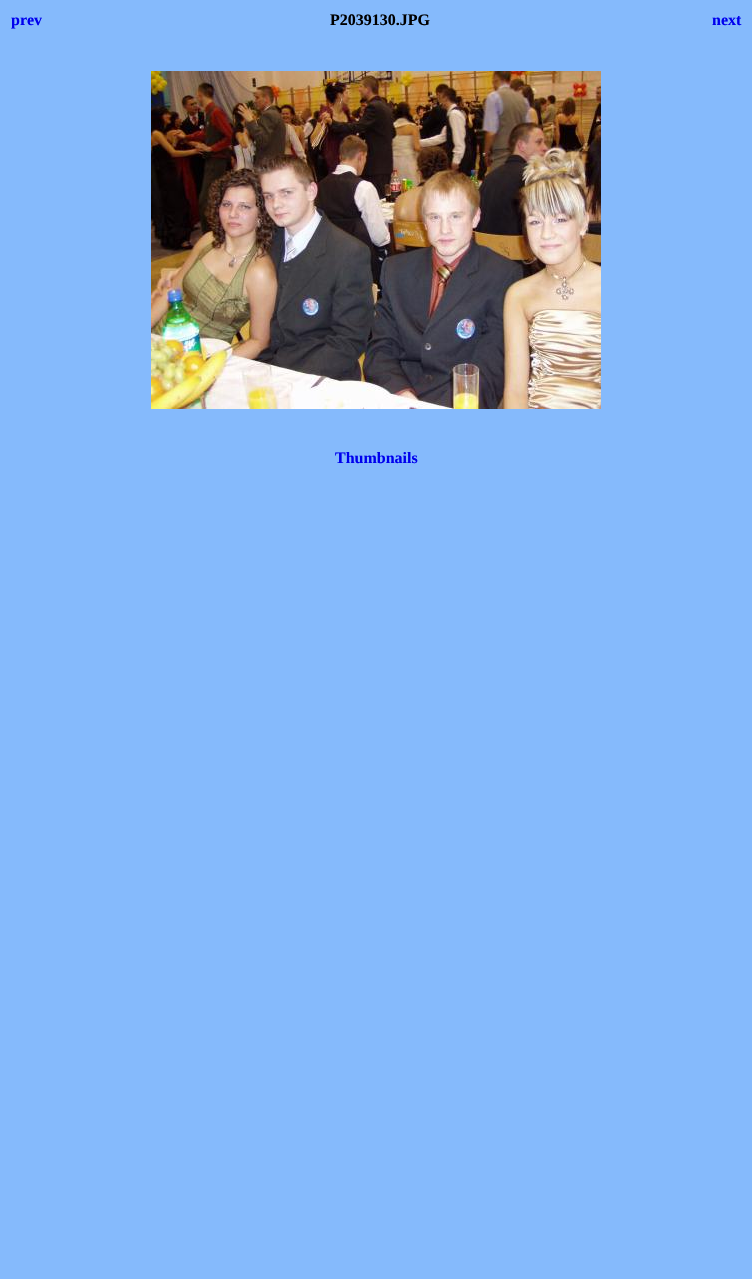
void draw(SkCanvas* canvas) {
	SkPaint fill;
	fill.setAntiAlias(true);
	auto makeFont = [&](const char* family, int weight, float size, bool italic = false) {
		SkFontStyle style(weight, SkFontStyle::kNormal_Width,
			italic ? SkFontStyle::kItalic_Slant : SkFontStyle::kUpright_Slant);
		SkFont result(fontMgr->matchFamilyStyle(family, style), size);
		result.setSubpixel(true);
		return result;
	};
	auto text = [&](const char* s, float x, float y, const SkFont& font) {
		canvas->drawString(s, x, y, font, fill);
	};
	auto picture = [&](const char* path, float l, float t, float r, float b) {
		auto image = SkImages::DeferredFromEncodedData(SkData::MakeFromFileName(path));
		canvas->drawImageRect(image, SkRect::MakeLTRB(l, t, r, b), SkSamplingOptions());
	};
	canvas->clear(0xFF85BAFC);
	picture("image0.png", 151, 71, 601, 409);
	auto font1 = makeFont("Liberation Serif", 700, 16);
	fill.setColor(0xFF0000EE);
	text("prev", 11, 25, font1);
	fill.setColor(0xFF000000);
	text("P2039130.JPG", 330, 25, font1);
	fill.setColor(0xFF0000EE);
	text("next", 712, 25, font1);
	text("Thumbnails", 335, 463, font1);
}
